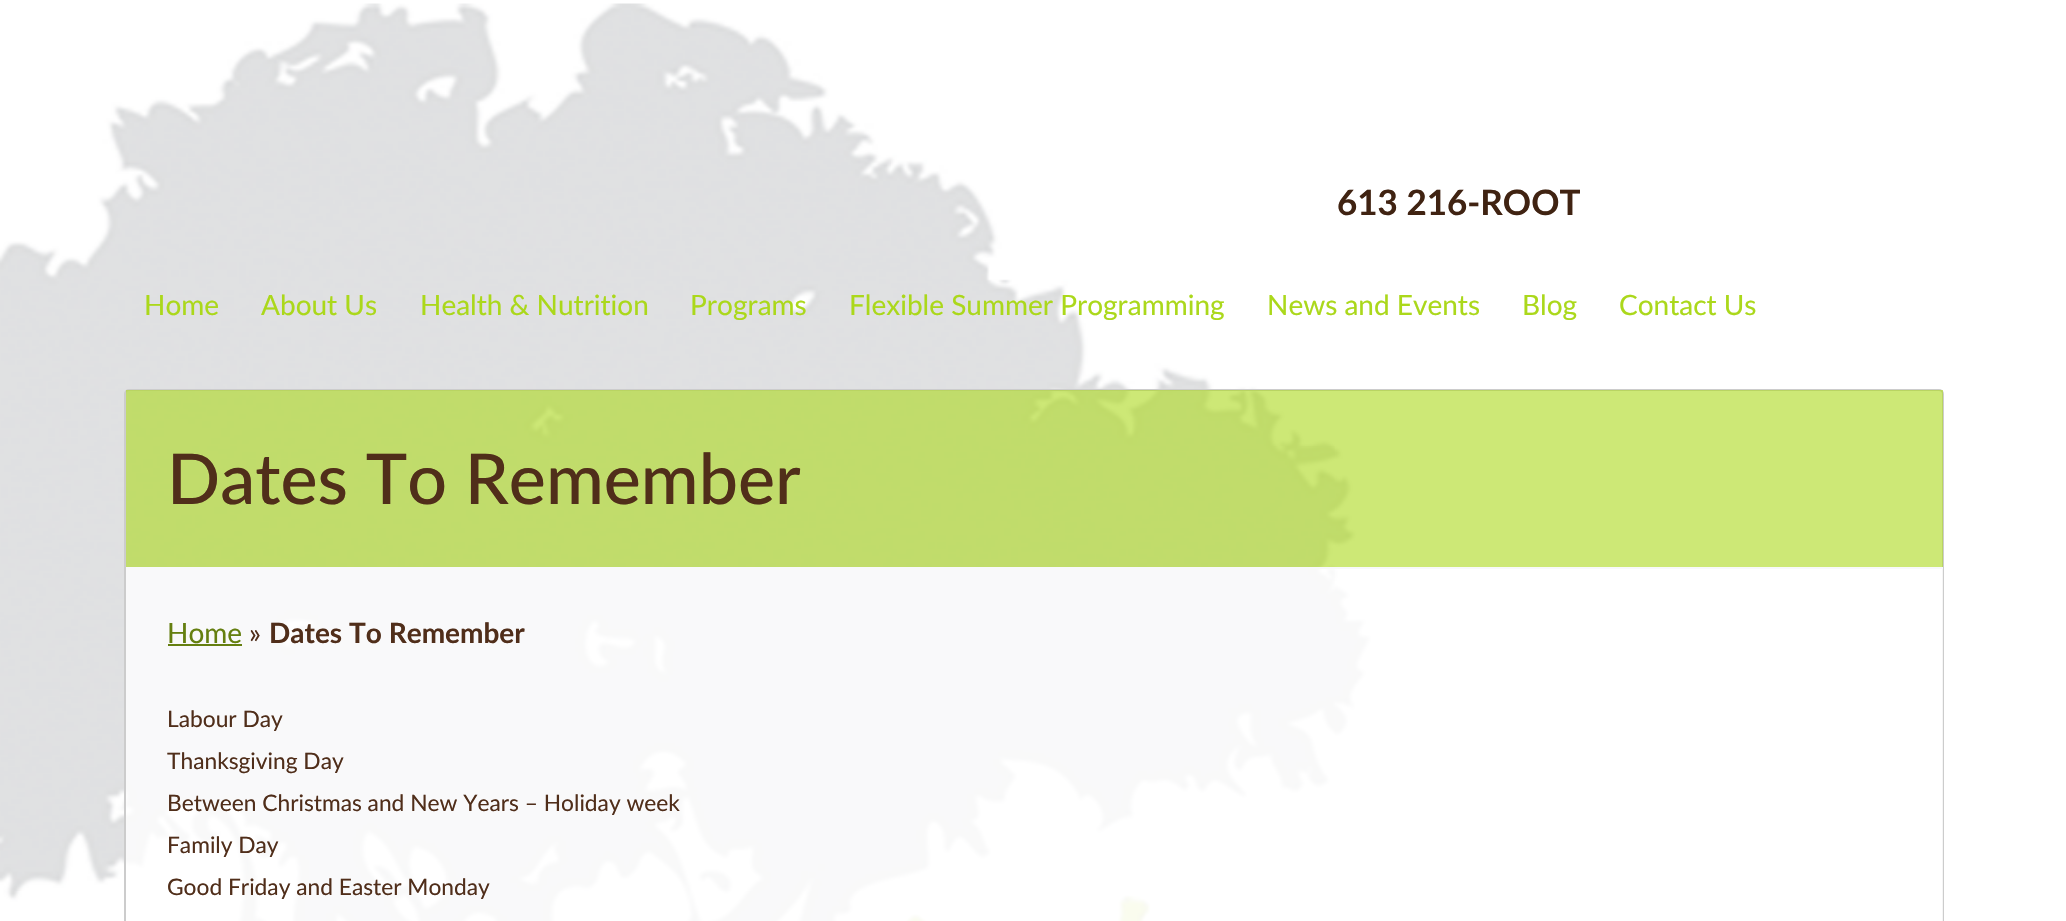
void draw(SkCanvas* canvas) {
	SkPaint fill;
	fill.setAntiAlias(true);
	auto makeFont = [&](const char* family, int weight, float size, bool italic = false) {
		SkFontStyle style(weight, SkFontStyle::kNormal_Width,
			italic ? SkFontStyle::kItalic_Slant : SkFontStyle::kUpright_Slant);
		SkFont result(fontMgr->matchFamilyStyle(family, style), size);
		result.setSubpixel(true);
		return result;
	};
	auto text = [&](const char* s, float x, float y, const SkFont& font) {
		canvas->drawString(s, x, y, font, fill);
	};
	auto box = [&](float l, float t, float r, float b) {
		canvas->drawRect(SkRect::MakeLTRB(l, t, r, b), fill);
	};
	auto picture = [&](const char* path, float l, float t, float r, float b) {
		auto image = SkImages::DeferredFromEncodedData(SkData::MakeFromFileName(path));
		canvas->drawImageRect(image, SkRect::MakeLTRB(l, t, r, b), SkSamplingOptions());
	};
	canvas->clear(0xFFFFFFFF);
	picture("image0.png", 0, 3, 1372, 921);
	fill.setStyle(SkPaint::kStroke_Style);
	fill.setStrokeWidth(2);
	fill.setColor(0xFFCCCCCC);
	canvas->drawRoundRect(SkRect::MakeLTRB(125, 390, 1943, 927), 4, 4, fill);
	fill.setStyle(SkPaint::kFill_Style);
	fill.setColor(0x99ABD81B);
	box(126, 390, 1943, 567);
	fill.setColor(0xFFF8F9FA);
	box(126, 567, 1943, 569);
	fill.setColor(0xCCFFFFFF);
	box(126, 569, 1943, 921);
	fill.setColor(0xFF657F10);
	box(168, 644, 242, 646);
	auto font1 = makeFont("Lato", 700, 35);
	fill.setColor(0xFF402312);
	text("613 216-ROOT", 1337, 215, font1);
	auto font2 = makeFont("Lato", 400, 28);
	fill.setColor(0xFFABD81B);
	text("Home", 144, 315, font2);
	text("About Us", 261, 315, font2);
	text("Health & Nutrition", 420, 315, font2);
	text("Programs", 690, 315, font2);
	text("Flexible Summer Programming", 849, 315, font2);
	text("News and Events", 1267, 315, font2);
	text("Blog", 1522, 315, font2);
	text("Contact Us", 1619, 315, font2);
	auto font3 = makeFont("Lato", 500, 70);
	fill.setColor(0xFF502E1A);
	text("Dates To Remember", 167, 504, font3);
	fill.setColor(0xFF657F10);
	text("Home", 167, 643, font2);
	fill.setColor(0xFF502E1A);
	text("»", 249, 643, font2);
	auto font4 = makeFont("Lato", 700, 28);
	text("Dates To Remember", 269, 643, font4);
	auto font5 = makeFont("Lato", 400, 22.75f);
	text("Labour Day", 167, 727, font5);
	text("Thanksgiving Day", 167, 769, font5);
	text("Between Christmas and New Years – Holiday week", 167, 811, font5);
	text("Family Day", 167, 853, font5);
	text("Good Friday and Easter Monday", 167, 895, font5);
}
